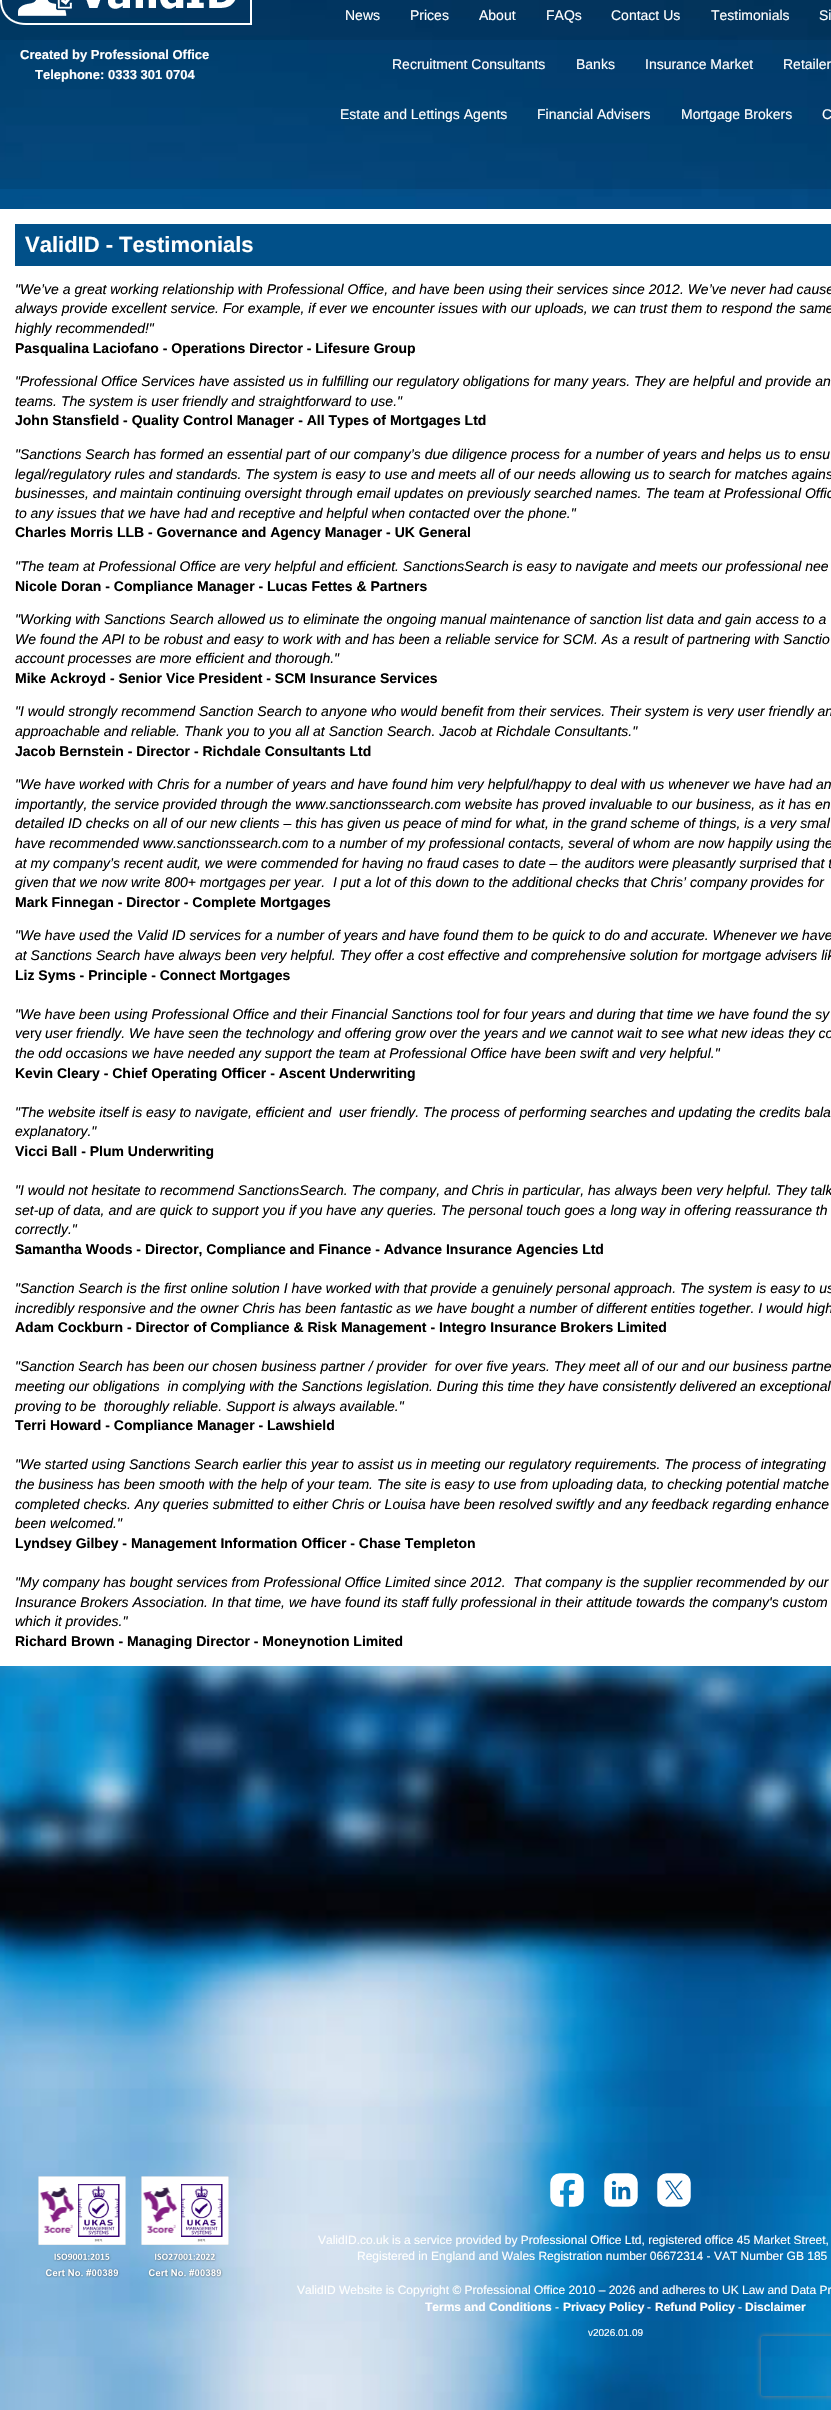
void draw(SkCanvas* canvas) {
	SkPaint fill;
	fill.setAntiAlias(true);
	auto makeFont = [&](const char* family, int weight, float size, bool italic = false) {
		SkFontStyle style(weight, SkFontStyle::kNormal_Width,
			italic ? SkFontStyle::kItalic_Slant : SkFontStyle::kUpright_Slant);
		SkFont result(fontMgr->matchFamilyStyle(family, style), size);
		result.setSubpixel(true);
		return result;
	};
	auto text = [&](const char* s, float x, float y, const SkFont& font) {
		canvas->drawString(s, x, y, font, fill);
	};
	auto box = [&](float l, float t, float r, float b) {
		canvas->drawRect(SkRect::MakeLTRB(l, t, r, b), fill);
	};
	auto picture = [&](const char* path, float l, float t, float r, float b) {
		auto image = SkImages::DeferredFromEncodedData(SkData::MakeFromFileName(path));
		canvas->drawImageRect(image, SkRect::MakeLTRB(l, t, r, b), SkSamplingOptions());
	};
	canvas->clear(0xFFFFFFFF);
	picture("image0.png", 0, 0, 831, 2410);
	fill.setColor(0x33000000);
	box(0, 0, 831, 40);
	picture("image1.png", 0, 0, 252, 25);
	fill.setColor(0x1A000000);
	box(0, 40, 831, 189);
	fill.setColor(0xFFFFFFFF);
	box(0, 209, 831, 1666);
	fill.setColor(0xFF015089);
	box(15, 224, 831, 266);
	picture("image2.png", 38, 2176, 126, 2278);
	picture("image3.png", 141, 2176, 229, 2278);
	picture("image4.png", 550, 2173, 584, 2207);
	picture("image5.png", 604, 2173, 638, 2207);
	picture("image6.png", 657, 2173, 691, 2207);
	canvas->save();
	canvas->clipPath(SkPathBuilder(SkPathFillType::kEvenOdd).moveTo(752, 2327).lineTo(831, 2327).lineTo(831, 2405).lineTo(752, 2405).close().moveTo(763, 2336).lineTo(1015, 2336).cubicTo(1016, 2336, 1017, 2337, 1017, 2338).lineTo(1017, 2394).cubicTo(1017, 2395, 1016, 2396, 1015, 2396).lineTo(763, 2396).cubicTo(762, 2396, 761, 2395, 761, 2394).lineTo(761, 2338).cubicTo(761, 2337, 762, 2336, 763, 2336).close().detach(), true);
	fill.setColor(0xFF808080);
	fill.setMaskFilter(SkMaskFilter::MakeBlur(kNormal_SkBlurStyle, 2.5f));
	canvas->drawRoundRect(SkRect::MakeLTRB(761, 2336, 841, 2396), 2, 2, fill);
	fill.setMaskFilter(nullptr);
	canvas->restore();
	auto font1 = makeFont("Liberation Sans", 400, 14);
	fill.setColor(0xFFFFFFFF);
	text("News", 345, 20, font1);
	text("Prices", 410, 20, font1);
	text("About", 479, 20, font1);
	text("FAQs", 546, 20, font1);
	text("Contact Us", 611, 20, font1);
	text("Testimonials", 711, 20, font1);
	text("Si", 819, 20, font1);
	auto font2 = makeFont("Liberation Sans", 700, 13);
	text("Created by Professional Office", 20, 59, font2);
	text("Telephone: 0333 301 0704", 35, 79, font2);
	text("Recruitment Consultants", 392, 69, font1);
	text("Banks", 576, 69, font1);
	text("Insurance Market", 645, 69, font1);
	text("Retailer", 783, 69, font1);
	text("Estate and Lettings Agents", 340, 119, font1);
	text("Financial Advisers", 537, 119, font1);
	text("Mortgage Brokers", 681, 119, font1);
	text("C", 822, 119, font1);
	auto font3 = makeFont("Liberation Sans", 700, 22);
	text("ValidID - Testimonials", 25, 252, font3);
	auto font4 = makeFont("Liberation Sans", 400, 14, true);
	fill.setColor(0xFF000000);
	text("\"We’ve a great working relationship with Professional Office, and have been using their services since 2012. We’ve never had cause", 15, 294, font4);
	text("always provide excellent service. For example, if ever we encounter issues with our uploads, we can trust them to respond the same", 15, 313, font4);
	text("highly recommended!\"", 15, 333, font4);
	auto font5 = makeFont("Liberation Sans", 700, 14);
	text("Pasqualina Laciofano - Operations Director - Lifesure Group", 15, 353, font5);
	text("\"Professional Office Services have assisted us in fulfilling our regulatory obligations for many years. They are helpful and provide an", 15, 386, font4);
	text("teams. The system is user friendly and straightforward to use.\"", 15, 406, font4);
	text("John Stansfield - Quality Control Manager - All Types of Mortgages Ltd", 15, 425, font5);
	text("\"Sanctions Search has formed an essential part of our company’s due diligence process for a number of years and helps us to ensu", 15, 459, font4);
	text("legal/regulatory rules and standards. The system is easy to use and meets all of our needs allowing us to search for matches agains", 15, 479, font4);
	text("businesses, and maintain continuing oversight through email updates on previously searched names. The team at Professional Offic", 15, 498, font4);
	text("to any issues that we have had and receptive and helpful when contacted over the phone.\"", 15, 518, font4);
	text("Charles Morris LLB - Governance and Agency Manager - UK General", 15, 537, font5);
	text("\"The team at Professional Office are very helpful and efficient. SanctionsSearch is easy to navigate and meets our professional nee", 15, 571, font4);
	text("Nicole Doran - Compliance Manager - Lucas Fettes & Partners", 15, 591, font5);
	text("\"Working with Sanctions Search allowed us to eliminate the ongoing manual maintenance of sanction list data and gain access to a", 15, 624, font4);
	text("We found the API to be robust and easy to work with and has been a reliable service for SCM. As a result of partnering with Sanctio", 15, 644, font4);
	text("account processes are more efficient and thorough.\"", 15, 663, font4);
	text("Mike Ackroyd - Senior Vice President - SCM Insurance Services", 15, 683, font5);
	text("\"I would strongly recommend Sanction Search to anyone who would benefit from their services. Their system is very user friendly an", 15, 716, font4);
	text("approachable and reliable. Thank you to you all at Sanction Search. Jacob at Richdale Consultants.\"", 15, 736, font4);
	text("Jacob Bernstein - Director - Richdale Consultants Ltd", 15, 756, font5);
	text("\"We have worked with Chris for a number of years and have found him very helpful/happy to deal with us whenever we have had an", 15, 789, font4);
	text("importantly, the service provided through the www.sanctionssearch.com website has proved invaluable to our business, as it has en", 15, 809, font4);
	text("detailed ID checks on all of our new clients – this has given us peace of mind for what, in the grand scheme of things, is a very smal", 15, 828, font4);
	text("have recommended www.sanctionssearch.com to a number of my professional contacts, several of whom are now happily using the", 15, 848, font4);
	text("at my company’s recent audit, we were commended for having no fraud cases to date – the auditors were pleasantly surprised that t", 15, 868, font4);
	text("given that we now write 800+ mortgages per year.  I put a lot of this down to the additional checks that Chris’ company provides for", 15, 887, font4);
	text("Mark Finnegan - Director - Complete Mortgages", 15, 907, font5);
	text("\"We have used the Valid ID services for a number of years and have found them to be quick to do and accurate. Whenever we have", 15, 940, font4);
	text("at Sanctions Search have always been very helpful. They offer a cost effective and comprehensive solution for mortgage advisers lik", 15, 960, font4);
	text("Liz Syms - Principle - Connect Mortgages", 15, 980, font5);
	text("\"We have been using Professional Office and their Financial Sanctions tool for four years and during that time we have found the sy", 15, 1019, font4);
	text("ve", 15, 1038, font4);
	text("ry", 30, 1038, font1);
	text("user friendly. We have seen the technology and offering grow over the years and we cannot wait to see what new ideas they co", 45, 1038, font4);
	text("the odd occasions we have needed any support the team at Professional Office have been swift and very helpful.\"", 15, 1058, font4);
	text("Kevin Cleary - Chief Operating Officer - Ascent Underwriting", 15, 1078, font5);
	text("\"The website itself is easy to navigate, efficient and  user friendly. The process of performing searches and updating the credits bala", 15, 1117, font4);
	text("explanatory.\"", 15, 1136, font4);
	text("Vicci Ball - Plum Underwriting", 15, 1156, font5);
	text("\"I would not hesitate to recommend SanctionsSearch. The company, and Chris in particular, has always been very helpful. They talk", 15, 1195, font4);
	text("set-up of data, and are quick to support you if you have any queries. The personal touch goes a long way in offering reassurance th", 15, 1215, font4);
	text("correctly.\"", 15, 1234, font4);
	text("Samantha Woods - Director, Compliance and Finance - Advance Insurance Agencies Ltd", 15, 1254, font5);
	text("\"Sanction Search is the first online solution I have worked with that provide a genuinely personal approach. The system is easy to us", 15, 1293, font4);
	text("incredibly responsive and the owner Chris has been fantastic as we have bought a number of different entities together. I would high", 15, 1313, font4);
	text("Adam Cockburn - Director of Compliance & Risk Management - Integro Insurance Brokers Limited", 15, 1332, font5);
	text("\"Sanction Search has been our chosen business partner / provider  for over five years. They meet all of our and our business partne", 15, 1371, font4);
	text("meeting our obligations  in complying with the Sanctions legislation. During this time they have consistently delivered an exceptional", 15, 1391, font4);
	text("proving to be  thoroughly reliable. Support is always available.\"", 15, 1411, font4);
	text("Terri Howard - Compliance Manager - Lawshield", 15, 1430, font5);
	text("\"We started using Sanctions Search earlier this year to assist us in meeting our regulatory requirements. The process of integrating", 15, 1469, font4);
	text("the business has been smooth with the help of your team. The site is easy to use from uploading data, to checking potential matche", 15, 1489, font4);
	text("completed checks. Any queries submitted to either Chris or Louisa have been resolved swiftly and any feedback regarding enhance", 15, 1509, font4);
	text("been welcomed.\"", 15, 1528, font4);
	text("Lyndsey Gilbey - Management Information Officer - Chase Templeton", 15, 1548, font5);
	text("\"My company has bought services from Professional Office Limited since 2012.  That company is the supplier recommended by our", 15, 1587, font4);
	text("Insurance Brokers Association. In that time, we have found its staff fully professional in their attitude towards the company's custom", 15, 1607, font4);
	text("which it provides.\"", 15, 1626, font4);
	text("Richard Brown - Managing Director - Moneynotion Limited", 15, 1646, font5);
	auto font6 = makeFont("Liberation Sans", 400, 12);
	fill.setColor(0xFFFFFFFF);
	text("ValidID.co.uk is a service provided by Professional Office Ltd, registered office 45 Market Street,", 318, 2244, font6);
	text("Registered in England and Wales Registration number 06672314 - VAT Number GB 185", 357, 2260, font6);
	text("ValidID Website is Copyright © Professional Office 2010 – 2026 and adheres to UK Law and Data Pr", 297, 2294, font6);
	auto font7 = makeFont("Liberation Sans", 700, 12);
	text("Terms and Conditions", 425, 2311, font7);
	text("-", 555, 2311, font6);
	text("Privacy Policy", 563, 2311, font7);
	text("-", 647, 2311, font6);
	text("Refund Policy", 655, 2311, font7);
	text("-", 738, 2311, font6);
	text("Disclaimer", 745, 2311, font7);
	auto font8 = makeFont("Liberation Sans", 400, 10);
	text("v2026.01.09", 588, 2336, font8);
}
